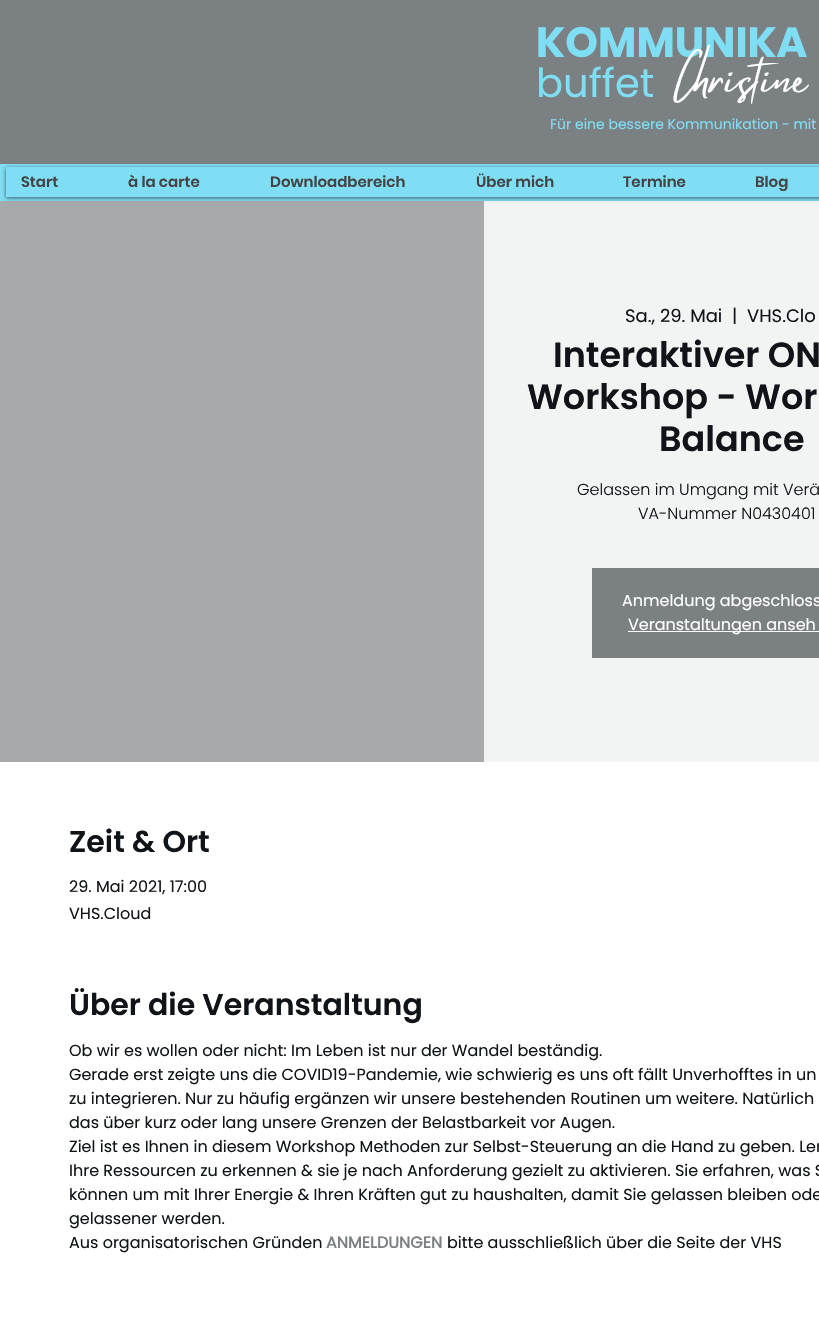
void draw(SkCanvas* canvas) {
	SkPaint fill;
	fill.setAntiAlias(true);
	auto makeFont = [&](const char* family, int weight, float size, bool italic = false) {
		SkFontStyle style(weight, SkFontStyle::kNormal_Width,
			italic ? SkFontStyle::kItalic_Slant : SkFontStyle::kUpright_Slant);
		SkFont result(fontMgr->matchFamilyStyle(family, style), size);
		result.setSubpixel(true);
		return result;
	};
	auto text = [&](const char* s, float x, float y, const SkFont& font) {
		canvas->drawString(s, x, y, font, fill);
	};
	auto box = [&](float l, float t, float r, float b) {
		canvas->drawRect(SkRect::MakeLTRB(l, t, r, b), fill);
	};
	canvas->clear(0xFFFFFFFF);
	fill.setColor(0xFF7B8082);
	box(0, 0, 819, 164);
	fill.setColor(0xFF80DEF4);
	box(0, 164, 819, 201);
	fill.setColor(0xFFA6AAAB);
	box(0, 201, 484, 762);
	fill.setColor(0xFFF2F3F3);
	box(484, 201, 819, 762);
	canvas->save();
	canvas->clipPath(SkPathBuilder(SkPathFillType::kEvenOdd).moveTo(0, 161).lineTo(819, 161).lineTo(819, 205).lineTo(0, 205).close().moveTo(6, 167).lineTo(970, 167).lineTo(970, 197).lineTo(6, 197).close().detach(), true);
	fill.setColor(0x99000000);
	fill.setMaskFilter(SkMaskFilter::MakeBlur(kNormal_SkBlurStyle, 2));
	canvas->drawRect(SkRect::MakeLTRB(6, 168, 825, 198), fill);
	fill.setMaskFilter(nullptr);
	canvas->restore();
	fill.setColor(0xFF7B8082);
	box(592, 568, 819, 658);
	fill.setColor(0xFFFFFFFF);
	box(628, 631, 819, 632);
	auto font1 = makeFont("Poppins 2", 700, 42);
	fill.setColor(0xFF80DEF4);
	text("KOMMUNIKA", 536, 57, font1);
	auto font2 = makeFont("Poppins", 400, 40);
	text("buffet", 536, 97, font2);
	auto font3 = makeFont("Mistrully", 400, 45);
	fill.setColor(0xFFFFFFFF);
	text("Christine", 672, 92, font3);
	auto font4 = makeFont("Poppins", 400, 14);
	fill.setColor(0xFF80DEF4);
	text("Für eine bessere Kommunikation - mit", 550, 129, font4);
	auto font5 = makeFont("Poppins 2", 600, 15);
	fill.setColor(0xFF444444);
	text("Start", 21, 187, font5);
	text("à la carte", 128, 187, font5);
	text("Downloadbereich", 270, 187, font5);
	text("Über mich", 476, 187, font5);
	text("Termine", 623, 187, font5);
	text("Blog", 755, 187, font5);
	auto font6 = makeFont("Poppins", 400, 18);
	fill.setColor(0xFF101317);
	text("Sa., 29. Mai", 625, 322, font6);
	text("|", 732, 322, font6);
	text("VHS.Clo", 747, 322, font6);
	auto font7 = makeFont("Poppins", 600, 35);
	text("Interaktiver ON", 553, 367, font7);
	text("Workshop - Wor", 527, 409, font7);
	text("Balance", 659, 451, font7);
	auto font8 = makeFont("Poppins", 300, 16);
	text("Gelassen im Umgang mit Verä", 577, 495, font8);
	text("VA-Nummer N0430401", 638, 519, font8);
	auto font9 = makeFont("Poppins", 400, 16);
	fill.setColor(0xFFFFFFFF);
	text("Anmeldung abgeschloss", 622, 606, font9);
	text("Veranstaltungen anseh", 628, 630, font9);
	auto font10 = makeFont("Poppins", 600, 30);
	fill.setColor(0xFF101317);
	text("Zeit & Ort", 69, 852, font10);
	text("29. Mai 2021, 17:00", 69, 892, font9);
	text("VHS.Cloud", 69, 919, font9);
	text("Über die Veranstaltung", 69, 1015, font10);
	text("Ob wir es wollen oder nicht: Im Leben ist nur der Wandel beständig.", 69, 1056, font9);
	text("Gerade erst zeigte uns die COVID19-Pandemie, wie schwierig es uns oft fällt Unverhofftes in un", 69, 1080, font9);
	text("zu integrieren. Nur zu häufig ergänzen wir unsere bestehenden Routinen um weitere. Natürlich", 69, 1104, font9);
	text("das über kurz oder lang unsere Grenzen der Belastbarkeit vor Augen.", 69, 1128, font9);
	text("Ziel ist es Ihnen in diesem Workshop Methoden zur Selbst-Steuerung an die Hand zu geben. Ler", 69, 1152, font9);
	text("Ihre Ressourcen zu erkennen & sie je nach Anforderung gezielt zu aktivieren. Sie erfahren, was S", 69, 1176, font9);
	text("können um mit Ihrer Energie & Ihren Kräften gut zu haushalten, damit Sie gelassen bleiben ode", 69, 1200, font9);
	text("gelassener werden.", 69, 1224, font9);
	text("Aus organisatorischen Gründen", 69, 1248, font9);
	auto font11 = makeFont("Poppins", 700, 16);
	fill.setColor(0xFF7B8082);
	text("ANMELDUNGEN", 326, 1248, font11);
	fill.setColor(0xFF101317);
	text("bitte ausschließlich über die Seite der VHS", 447, 1248, font9);
}
